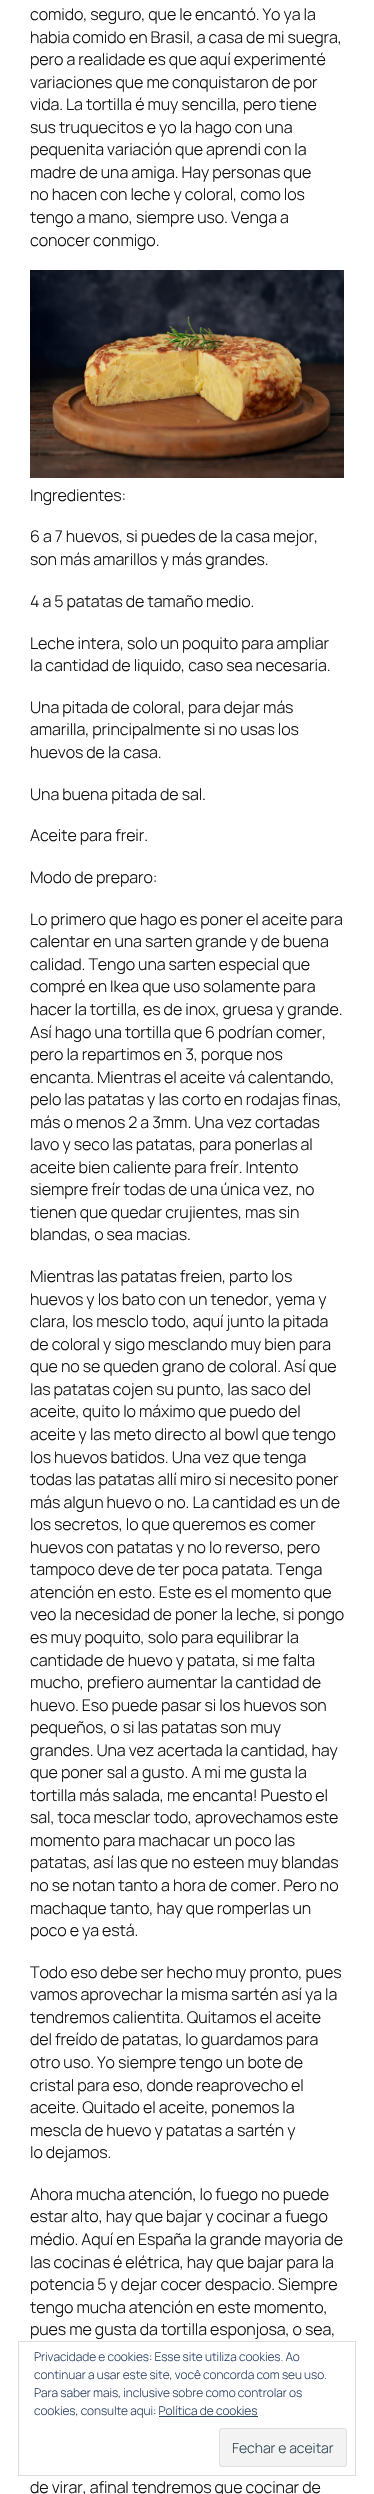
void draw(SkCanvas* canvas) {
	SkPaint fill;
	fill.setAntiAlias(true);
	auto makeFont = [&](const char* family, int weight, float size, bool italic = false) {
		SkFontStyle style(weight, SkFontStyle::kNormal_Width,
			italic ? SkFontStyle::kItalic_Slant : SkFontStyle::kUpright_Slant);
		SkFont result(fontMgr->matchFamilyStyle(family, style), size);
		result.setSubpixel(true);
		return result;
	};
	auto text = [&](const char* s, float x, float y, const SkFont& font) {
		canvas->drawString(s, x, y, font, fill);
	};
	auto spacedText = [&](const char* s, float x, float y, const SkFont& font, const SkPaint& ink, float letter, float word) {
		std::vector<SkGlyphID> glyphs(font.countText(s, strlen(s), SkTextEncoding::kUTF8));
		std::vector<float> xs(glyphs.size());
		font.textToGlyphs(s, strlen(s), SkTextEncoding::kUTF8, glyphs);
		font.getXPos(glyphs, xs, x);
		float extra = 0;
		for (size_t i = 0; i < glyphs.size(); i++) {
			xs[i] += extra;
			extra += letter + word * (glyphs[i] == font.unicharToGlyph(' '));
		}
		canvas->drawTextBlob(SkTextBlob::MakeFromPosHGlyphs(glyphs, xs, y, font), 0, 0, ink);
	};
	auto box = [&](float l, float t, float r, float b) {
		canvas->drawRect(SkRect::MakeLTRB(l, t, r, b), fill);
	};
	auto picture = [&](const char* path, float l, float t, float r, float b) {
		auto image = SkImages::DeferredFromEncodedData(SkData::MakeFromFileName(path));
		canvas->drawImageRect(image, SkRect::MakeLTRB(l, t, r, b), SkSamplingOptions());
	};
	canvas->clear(0xFFFFFFFF);
	picture("image0.png", 30, 270, 344, 478);
	fill.setStyle(SkPaint::kStroke_Style);
	fill.setStrokeWidth(1);
	fill.setColor(0xFFDEDEDE);
	canvas->drawRect(SkRect::MakeLTRB(18.5f, 2341.5f, 355.5f, 2475.5f), fill);
	fill.setStyle(SkPaint::kFill_Style);
	fill.setColor(0xFF2E4467);
	box(159, 2416, 258, 2417);
	fill.setColor(0xFFF3F3F3);
	canvas->drawRoundRect(SkRect::MakeLTRB(219.5f, 2428.5f, 346.5f, 2466.5f), 2.5f, 2.5f, fill);
	fill.setStyle(SkPaint::kStroke_Style);
	fill.setColor(0xFFDEDEDE);
	canvas->drawRoundRect(SkRect::MakeLTRB(219.5f, 2428.5f, 346.5f, 2466.5f), 2.5f, 2.5f, fill);
	auto font1 = makeFont("Manrope", 300, 16.1f);
	fill.setStyle(SkPaint::kFill_Style);
	fill.setColor(0xFF111111);
	spacedText("comido, seguro, que le encantó. Yo ya la", 30, 20, font1, fill, -0.1f, 0);
	spacedText("habia comido en Brasil, a casa de mi suegra,", 30, 43, font1, fill, -0.1f, 0);
	spacedText("pero a realidade es que aquí experimenté", 30, 65, font1, fill, -0.1f, 0);
	spacedText("variaciones que me conquistaron de por", 30, 88, font1, fill, -0.1f, 0);
	spacedText("vida. La tortilla é muy sencilla, pero tiene", 30, 110, font1, fill, -0.1f, 0);
	spacedText("sus truquecitos e yo la hago con una", 30, 133, font1, fill, -0.1f, 0);
	spacedText("pequenita variación que aprendi con la", 30, 155, font1, fill, -0.1f, 0);
	spacedText("madre de una amiga. Hay personas que", 30, 178, font1, fill, -0.1f, 0);
	spacedText("no hacen con leche y coloral, como los", 30, 200, font1, fill, -0.1f, 0);
	spacedText("tengo a mano, siempre uso. Venga a", 30, 223, font1, fill, -0.1f, 0);
	spacedText("conocer conmigo.", 30, 246, font1, fill, -0.1f, 0);
	spacedText("Ingredientes:", 30, 501, font1, fill, -0.1f, 0);
	spacedText("6 a 7 huevos, si puedes de la casa mejor,", 30, 542, font1, fill, -0.1f, 0);
	spacedText("son más amarillos y más grandes.", 30, 565, font1, fill, -0.1f, 0);
	spacedText("4 a 5 patatas de tamaño medio.", 30, 607, font1, fill, -0.1f, 0);
	spacedText("Leche intera, solo un poquito para ampliar", 30, 649, font1, fill, -0.1f, 0);
	spacedText("la cantidad de liquido, caso sea necesaria.", 30, 671, font1, fill, -0.1f, 0);
	spacedText("Una pitada de coloral, para dejar más", 30, 713, font1, fill, -0.1f, 0);
	spacedText("amarilla, principalmente si no usas los", 30, 735, font1, fill, -0.1f, 0);
	spacedText("huevos de la casa.", 30, 758, font1, fill, -0.1f, 0);
	spacedText("Una buena pitada de sal.", 30, 800, font1, fill, -0.1f, 0);
	spacedText("Aceite para freir.", 30, 841, font1, fill, -0.1f, 0);
	spacedText("Modo de preparo:", 30, 883, font1, fill, -0.1f, 0);
	spacedText("Lo primero que hago es poner el aceite para", 30, 925, font1, fill, -0.1f, 0);
	spacedText("calentar en una sarten grande y de buena", 30, 947, font1, fill, -0.1f, 0);
	spacedText("calidad. Tengo una sarten especial que", 30, 970, font1, fill, -0.1f, 0);
	spacedText("compré en Ikea que uso solamente para", 30, 992, font1, fill, -0.1f, 0);
	spacedText("hacer la tortilla, es de inox, gruesa y grande.", 30, 1015, font1, fill, -0.1f, 0);
	spacedText("Así hago una tortilla que 6 podrían comer,", 30, 1038, font1, fill, -0.1f, 0);
	spacedText("pero la repartimos en 3, porque nos", 30, 1060, font1, fill, -0.1f, 0);
	spacedText("encanta. Mientras el aceite vá calentando,", 30, 1083, font1, fill, -0.1f, 0);
	spacedText("pelo las patatas y las corto en rodajas finas,", 30, 1105, font1, fill, -0.1f, 0);
	spacedText("más o menos 2 a 3mm. Una vez cortadas", 30, 1128, font1, fill, -0.1f, 0);
	spacedText("lavo y seco las patatas, para ponerlas al", 30, 1150, font1, fill, -0.1f, 0);
	spacedText("aceite bien caliente para freír. Intento", 30, 1173, font1, fill, -0.1f, 0);
	spacedText("siempre freír todas de una única vez, no", 30, 1195, font1, fill, -0.1f, 0);
	spacedText("tienen que quedar crujientes, mas sin", 30, 1218, font1, fill, -0.1f, 0);
	spacedText("blandas, o sea macias.", 30, 1240, font1, fill, -0.1f, 0);
	spacedText("Mientras las patatas freien, parto los", 30, 1282, font1, fill, -0.1f, 0);
	spacedText("huevos y los bato con un tenedor, yema y", 30, 1305, font1, fill, -0.1f, 0);
	spacedText("clara, los mesclo todo, aquí junto la pitada", 30, 1327, font1, fill, -0.1f, 0);
	spacedText("de coloral y sigo mesclando muy bien para", 30, 1350, font1, fill, -0.1f, 0);
	spacedText("que no se queden grano de coloral. Así que", 30, 1372, font1, fill, -0.1f, 0);
	spacedText("las patatas cojen su punto, las saco del", 30, 1395, font1, fill, -0.1f, 0);
	spacedText("aceite, quito lo máximo que puedo del", 30, 1417, font1, fill, -0.1f, 0);
	spacedText("aceite y las meto directo al bowl que tengo", 30, 1440, font1, fill, -0.1f, 0);
	spacedText("los huevos batidos. Una vez que tenga", 30, 1463, font1, fill, -0.1f, 0);
	spacedText("todas las patatas allí miro si necesito poner", 30, 1485, font1, fill, -0.1f, 0);
	spacedText("más algun huevo o no. La cantidad es un de", 30, 1508, font1, fill, -0.1f, 0);
	spacedText("los secretos, lo que queremos es comer", 30, 1530, font1, fill, -0.1f, 0);
	spacedText("huevos con patatas y no lo reverso, pero", 30, 1553, font1, fill, -0.1f, 0);
	spacedText("tampoco deve de ter poca patata. Tenga", 30, 1575, font1, fill, -0.1f, 0);
	spacedText("atención en esto. Este es el momento que", 30, 1598, font1, fill, -0.1f, 0);
	spacedText("veo la necesidad de poner la leche, si pongo", 30, 1620, font1, fill, -0.1f, 0);
	spacedText("es muy poquito, solo para equilibrar la", 30, 1643, font1, fill, -0.1f, 0);
	spacedText("cantidade de huevo y patata, si me falta", 30, 1666, font1, fill, -0.1f, 0);
	spacedText("mucho, prefiero aumentar la cantidad de", 30, 1688, font1, fill, -0.1f, 0);
	spacedText("huevo. Eso puede pasar si los huevos son", 30, 1711, font1, fill, -0.1f, 0);
	spacedText("pequeños, o si las patatas son muy", 30, 1733, font1, fill, -0.1f, 0);
	spacedText("grandes. Una vez acertada la cantidad, hay", 30, 1756, font1, fill, -0.1f, 0);
	spacedText("que poner sal a gusto. A mi me gusta la", 30, 1778, font1, fill, -0.1f, 0);
	spacedText("tortilla más salada, me encanta! Puesto el", 30, 1801, font1, fill, -0.1f, 0);
	spacedText("sal, toca mesclar todo, aprovechamos este", 30, 1823, font1, fill, -0.1f, 0);
	spacedText("momento para machacar un poco las", 30, 1846, font1, fill, -0.1f, 0);
	spacedText("patatas, así las que no esteen muy blandas", 30, 1868, font1, fill, -0.1f, 0);
	spacedText("no se notan tanto a hora de comer. Pero no", 30, 1891, font1, fill, -0.1f, 0);
	spacedText("machaque tanto, hay que romperlas un", 30, 1914, font1, fill, -0.1f, 0);
	spacedText("poco e ya está.", 30, 1936, font1, fill, -0.1f, 0);
	spacedText("Todo eso debe ser hecho muy pronto, pues", 30, 1978, font1, fill, -0.1f, 0);
	spacedText("vamos aprovechar la misma sartén así ya la", 30, 2000, font1, fill, -0.1f, 0);
	spacedText("tendremos calientita. Quitamos el aceite", 30, 2023, font1, fill, -0.1f, 0);
	spacedText("del freído de patatas, lo guardamos para", 30, 2045, font1, fill, -0.1f, 0);
	spacedText("otro uso. Yo siempre tengo un bote de", 30, 2068, font1, fill, -0.1f, 0);
	spacedText("cristal para eso, donde reaprovecho el", 30, 2091, font1, fill, -0.1f, 0);
	spacedText("aceite. Quitado el aceite, ponemos la", 30, 2113, font1, fill, -0.1f, 0);
	spacedText("mescla de huevo y patatas a sartén y", 30, 2136, font1, fill, -0.1f, 0);
	spacedText("lo dejamos.", 30, 2158, font1, fill, -0.1f, 0);
	spacedText("Ahora mucha atención, lo fuego no puede", 30, 2200, font1, fill, -0.1f, 0);
	spacedText("estar alto, hay que bajar y cocinar a fuego", 30, 2222, font1, fill, -0.1f, 0);
	spacedText("médio. Aquí en España la grande mayoria de", 30, 2245, font1, fill, -0.1f, 0);
	spacedText("las cocinas é elétrica, hay que bajar para la", 30, 2268, font1, fill, -0.1f, 0);
	spacedText("potencia 5 y dejar cocer despacio. Siempre", 30, 2290, font1, fill, -0.1f, 0);
	spacedText("tengo mucha atención en este momento,", 30, 2313, font1, fill, -0.1f, 0);
	spacedText("pues me gusta da tortilla esponjosa, o sea,", 30, 2335, font1, fill, -0.1f, 0);
	spacedText("de virar, afinal tendremos que cocinar de", 30, 2493, font1, fill, -0.1f, 0);
	auto font2 = makeFont("Manrope", 300, 12);
	fill.setColor(0xFF2E4467);
	spacedText("Privacidade e cookies: Esse site utiliza cookies. Ao", 34, 2361, font2, fill, -0.1f, 0);
	spacedText("continuar a usar este site, você concorda com seu uso.", 34, 2379, font2, fill, -0.1f, 0);
	spacedText("Para saber mais, inclusive sobre como controlar os", 34, 2397, font2, fill, -0.1f, 0);
	spacedText("cookies, consulte aqui: Política de cookies", 34, 2415, font2, fill, -0.1f, 0);
	auto font3 = makeFont("Manrope", 300, 14);
	fill.setColor(0xFF2E4453);
	text("Fechar e aceitar", 232, 2453, font3);
}
